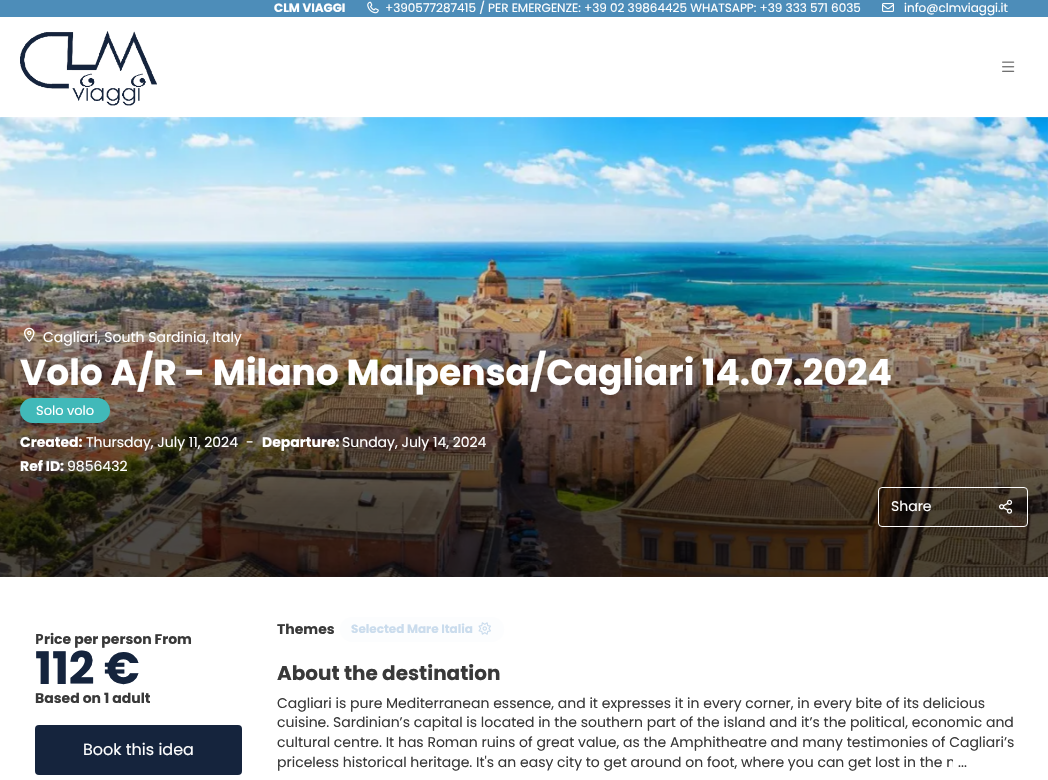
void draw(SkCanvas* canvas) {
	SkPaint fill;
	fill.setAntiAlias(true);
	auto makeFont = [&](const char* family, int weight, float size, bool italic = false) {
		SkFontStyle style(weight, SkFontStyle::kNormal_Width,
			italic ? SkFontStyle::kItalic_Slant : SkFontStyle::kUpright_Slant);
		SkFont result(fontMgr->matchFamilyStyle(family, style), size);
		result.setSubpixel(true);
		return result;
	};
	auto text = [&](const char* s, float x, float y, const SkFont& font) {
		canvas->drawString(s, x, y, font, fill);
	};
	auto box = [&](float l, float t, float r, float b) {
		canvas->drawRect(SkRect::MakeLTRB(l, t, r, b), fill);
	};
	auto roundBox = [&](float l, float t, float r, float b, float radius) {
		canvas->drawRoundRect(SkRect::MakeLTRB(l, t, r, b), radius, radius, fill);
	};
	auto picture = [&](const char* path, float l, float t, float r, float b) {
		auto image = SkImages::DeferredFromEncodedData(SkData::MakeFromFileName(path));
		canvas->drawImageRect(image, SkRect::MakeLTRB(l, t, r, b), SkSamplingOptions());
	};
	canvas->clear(0xFFFFFFFF);
	fill.setColor(0xFF4D8DB9);
	box(0, 0, 1048, 17);
	picture("image0.png", 367, 1, 379, 14);
	picture("image1.png", 882, 3, 894, 12);
	picture("image2.png", 20, 31, 157, 106);
	picture("image3.png", 1002, 61, 1015, 72);
	picture("image4.png", 0, 117, 1048, 577);
	{
		const SkColor colors[] = {0x00000000, 0xB3000000};
		const float stops[] = {0.25f, 0.85f};
		const SkPoint ends[] = {{524, 117}, {524, 577}};
		fill.setShader(SkGradientShader::MakeLinear(ends, colors, stops, 2, SkTileMode::kClamp));
		fill.setAlpha(255);
	}
	box(0, 241, 1048, 577);
	picture("image5.png", 24, 327, 35, 342);
	fill.setShader(nullptr);
	fill.setColor(0xFF41B9B9);
	roundBox(20, 398, 110, 423, 12.5f);
	fill.setStyle(SkPaint::kStroke_Style);
	fill.setStrokeWidth(1);
	fill.setColor(0xFFFFFFFF);
	canvas->drawRoundRect(SkRect::MakeLTRB(878.5f, 487.5f, 1027.5f, 526.5f), 3.5f, 3.5f, fill);
	picture("image6.png", 999, 499, 1013, 514);
	fill.setStyle(SkPaint::kFill_Style);
	fill.setColor(0xFF15243D);
	roundBox(35, 725, 242, 775, 4);
	fill.setColor(0xFFFCFDFE);
	roundBox(340, 617, 504, 642, 12.5f);
	picture("image7.png", 478, 622, 491, 635);
	auto font1 = makeFont("Poppins", 700, 12);
	fill.setColor(0xFFFFFFFF);
	text("CLM VIAGGI", 274, 12, font1);
	auto font2 = makeFont("Poppins", 400, 12);
	text("+390577287415 / PER EMERGENZE: +39 02 39864425 WHATSAPP: +39 333 571 6035", 385, 12, font2);
	text("info@clmviaggi.it", 904, 12, font2);
	auto font3 = makeFont("Poppins", 400, 14);
	text("Cagliari, South Sardinia, Italy", 43, 342, font3);
	auto font4 = makeFont("Poppins", 700, 36);
	text("Volo A/R - Milano Malpensa/Cagliari 14.07.2024", 20, 385, font4);
	auto font5 = makeFont("Poppins", 400, 13);
	text("Solo volo", 36, 415, font5);
	auto font6 = makeFont("Poppins", 700, 14);
	text("Created:", 20, 447, font6);
	text("Thursday, July 11, 2024", 86, 447, font3);
	text("-", 246, 447, font3);
	text("Departure:", 262, 447, font6);
	text("Sunday, July 14, 2024", 342, 447, font3);
	text("Ref ID:", 20, 471, font6);
	text("9856432", 67, 471, font3);
	text("Share", 891, 511, font3);
	auto font7 = makeFont("Noto Sans", 700, 14);
	fill.setColor(0xFF393939);
	text("P", 35, 644, font7);
	text("rice per person From", 44, 644, font6);
	auto font8 = makeFont("Poppins", 700, 45);
	fill.setColor(0xFF15243D);
	text("112 €", 35, 684, font8);
	fill.setColor(0xFF393939);
	text("Based on 1 adult", 35, 703, font6);
	auto font9 = makeFont("Poppins", 400, 16);
	fill.setColor(0xFFFFFFFF);
	text("Book this idea", 83, 755, font9);
	fill.setColor(0xFF393939);
	text("Themes", 277, 634, font6);
	fill.setColor(0xFFCADCED);
	text("Selected Mare Italia", 351, 633, font1);
	auto font10 = makeFont("Poppins", 700, 20);
	fill.setColor(0xFF393939);
	text("About the destination", 277, 680, font10);
	text("Cagliari is pure Mediterranean essence, and it expresses it in every corner, in every bite of its delicious", 277, 708, font3);
	text("cuisine. Sardinian’s capital is located in the southern part of the island and it’s the political, economic and", 277, 727, font3);
	text("cultural centre. It has Roman ruins of great value, as the Amphitheatre and many testimonies of Cagliari’s", 277, 747, font3);
	text("priceless historical heritage. It's an easy city to get around on foot, where you can get lost in the n", 277, 767, font3);
	fill.setColor(0xFFFFFFFF);
	box(953, 759, 955, 767);
	fill.setColor(0xFF393939);
	text("...", 958, 767, font3);
}
